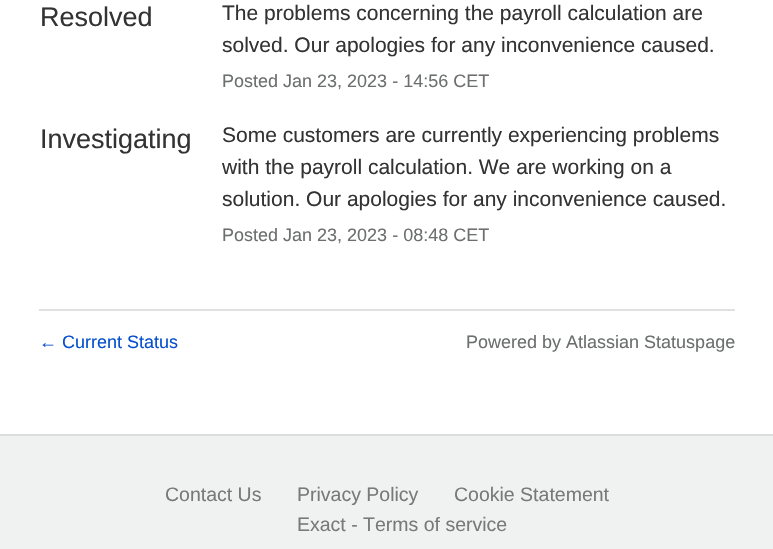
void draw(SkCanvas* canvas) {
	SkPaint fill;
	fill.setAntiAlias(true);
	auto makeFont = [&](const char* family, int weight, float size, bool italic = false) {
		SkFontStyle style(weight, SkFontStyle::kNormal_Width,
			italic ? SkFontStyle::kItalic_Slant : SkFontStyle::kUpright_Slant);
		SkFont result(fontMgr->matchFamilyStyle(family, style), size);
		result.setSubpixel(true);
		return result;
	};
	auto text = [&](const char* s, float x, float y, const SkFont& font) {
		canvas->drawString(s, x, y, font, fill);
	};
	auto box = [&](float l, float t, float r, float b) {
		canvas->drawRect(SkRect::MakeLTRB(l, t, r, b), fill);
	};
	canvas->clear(0xFFFFFFFF);
	fill.setColor(0xFFE0E0E0);
	box(39, 309, 735, 311);
	fill.setColor(0xFFF0F2F2);
	box(0, 436, 773, 549);
	fill.setColor(0xFFDADEDE);
	box(0, 434, 773, 436);
	auto font1 = makeFont("Liberation Sans", 400, 27);
	fill.setColor(0xFF333333);
	text("Resolved", 40, 26, font1);
	auto font2 = makeFont("Liberation Sans", 400, 21);
	text("The problems concerning the payroll calculation are", 222, 20, font2);
	text("solved. Our apologies for any inconvenience caused.", 222, 52, font2);
	auto font3 = makeFont("Liberation Sans", 400, 18);
	fill.setColor(0xFF6D6F6F);
	text("Posted Jan 23, 2023 - 14:56 CET", 222, 87, font3);
	fill.setColor(0xFF333333);
	text("Investigating", 40, 148, font1);
	text("Some customers are currently experiencing problems", 222, 142, font2);
	text("with the payroll calculation. We are working on a", 222, 174, font2);
	text("solution. Our apologies for any inconvenience caused.", 222, 206, font2);
	fill.setColor(0xFF6D6F6F);
	text("Posted Jan 23, 2023 - 08:48 CET", 222, 241, font3);
	fill.setColor(0xFF0650D0);
	text("← Current Status", 39, 348, font3);
	fill.setColor(0xFF6D6F6F);
	text("Powered by Atlassian Statuspage", 466, 348, font3);
	auto font4 = makeFont("Liberation Sans", 400, 19.5f);
	fill.setColor(0xFF787A7A);
	text("Contact Us", 165, 501, font4);
	text("Privacy Policy", 297, 501, font4);
	text("Cookie Statement", 454, 501, font4);
	text("Exact - Terms of service", 297, 531, font4);
}
